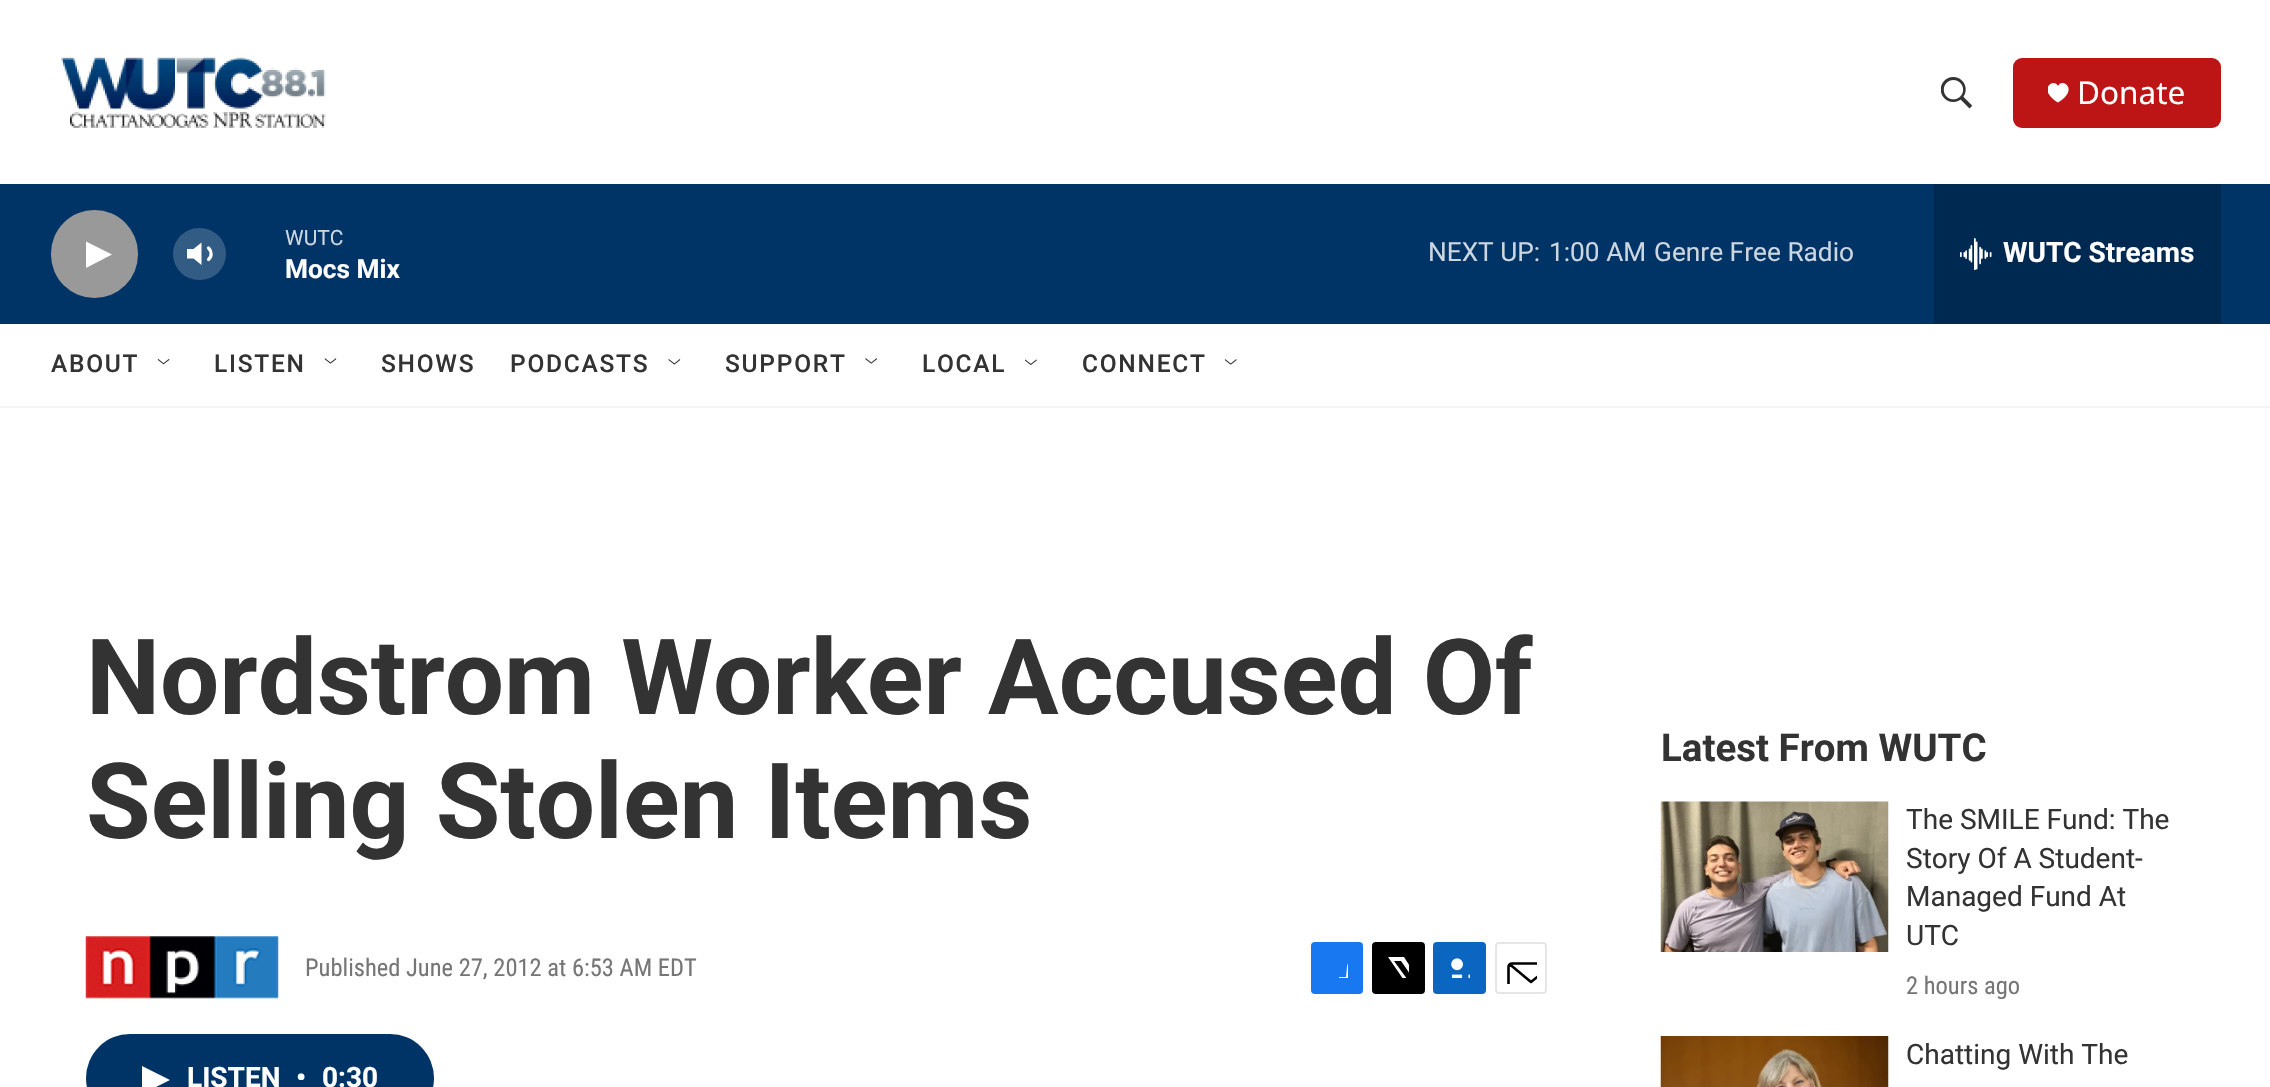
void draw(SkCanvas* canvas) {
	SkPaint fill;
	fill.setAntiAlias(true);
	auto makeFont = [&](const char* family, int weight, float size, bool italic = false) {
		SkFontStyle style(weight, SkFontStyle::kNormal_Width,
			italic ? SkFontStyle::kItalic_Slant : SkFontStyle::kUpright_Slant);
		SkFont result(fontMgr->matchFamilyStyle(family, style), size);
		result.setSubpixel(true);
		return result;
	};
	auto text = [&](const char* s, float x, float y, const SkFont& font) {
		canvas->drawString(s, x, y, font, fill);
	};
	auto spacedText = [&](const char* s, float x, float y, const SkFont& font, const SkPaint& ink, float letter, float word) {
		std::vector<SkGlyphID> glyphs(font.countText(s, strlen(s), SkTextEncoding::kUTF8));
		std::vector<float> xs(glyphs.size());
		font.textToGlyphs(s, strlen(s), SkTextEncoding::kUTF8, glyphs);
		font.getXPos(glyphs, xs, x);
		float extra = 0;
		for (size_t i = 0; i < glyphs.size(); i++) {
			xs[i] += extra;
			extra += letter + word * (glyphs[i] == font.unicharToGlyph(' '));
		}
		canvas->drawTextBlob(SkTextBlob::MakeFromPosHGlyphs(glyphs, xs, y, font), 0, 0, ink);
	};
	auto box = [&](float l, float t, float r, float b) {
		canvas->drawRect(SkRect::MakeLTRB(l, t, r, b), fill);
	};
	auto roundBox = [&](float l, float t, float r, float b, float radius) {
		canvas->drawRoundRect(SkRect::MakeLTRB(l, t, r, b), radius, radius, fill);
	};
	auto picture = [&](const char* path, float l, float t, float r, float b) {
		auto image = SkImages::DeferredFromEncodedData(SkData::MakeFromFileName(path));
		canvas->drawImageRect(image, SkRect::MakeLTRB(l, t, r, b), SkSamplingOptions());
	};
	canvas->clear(0xFFFFFFFF);
	fill.setColor(0xFFF5F5F5);
	box(0, 406, 2270, 408);
	picture("image0.png", 61, 57, 326, 128);
	picture("image1.png", 1941, 77, 1972, 109);
	fill.setColor(0xFFBD1515);
	roundBox(2013, 58, 2221, 128, 9);
	canvas->save();
	canvas->clipRect(SkRect::MakeLTRB(2048, 82, 2069, 103));
	fill.setColor(0xFFFFFFFF);
	canvas->drawPath(SkPathBuilder().moveTo(2058, 86).cubicTo(2054.5f, 77, 2036, 89, 2058, 102.5f).cubicTo(2080, 89, 2061.5f, 77, 2058, 86).close().detach(), fill);
	canvas->restore();
	fill.setColor(0xFF003366);
	box(0, 184, 2270, 324);
	fill.setColor(0xFF999999);
	roundBox(51, 210, 138, 298, 43.5f);
	fill.setColor(0xFFFFFFFF);
	canvas->drawPath(SkPathBuilder().moveTo(86, 241.5f).lineTo(112, 254.5f).lineTo(86, 268).close().detach(), fill);
	canvas->drawPath(SkPathBuilder().moveTo(201.5f, 242.5f).lineTo(193.5f, 249).lineTo(187, 249).lineTo(187, 258.5f).lineTo(193.5f, 258.5f).lineTo(201.5f, 265).close().detach(), fill);
	fill.setStyle(SkPaint::kStroke_Style);
	fill.setStrokeWidth(3.2f);
	fill.setStrokeCap(SkPaint::kRound_Cap);
	fill.setStrokeJoin(SkPaint::kRound_Join);
	canvas->drawPath(SkPathBuilder().moveTo(208.5f, 248).cubicTo(212, 251.5f, 212, 256.5f, 208.5f, 259.5f).detach(), fill);
	fill.setStyle(SkPaint::kFill_Style);
	fill.setColor(0x33FFFFFF);
	roundBox(173, 228, 226, 280, 26);
	fill.setColor(0xFF002952);
	box(1934, 184, 2221, 324);
	picture("image2.png", 1960, 238, 1992, 270);
	picture("image3.png", 157, 358, 170, 365);
	picture("image4.png", 324, 358, 337, 364);
	picture("image5.png", 668, 359, 681, 365);
	picture("image6.png", 865, 358, 877, 364);
	picture("image7.png", 1025, 359, 1037, 365);
	picture("image8.png", 1224, 359, 1237, 365);
	picture("image9.png", 85, 936, 279, 999);
	fill.setColor(0xFF1778F2);
	roundBox(1311, 942, 1363, 994, 4);
	canvas->save();
	canvas->clipRect(SkRect::MakeLTRB(1327, 957, 1348, 978));
	fill.setColor(0xFFFFFFFF);
	canvas->drawPath(SkPathBuilder().moveTo(1356, 994).lineTo(1346, 994).lineTo(1346, 985).lineTo(1339, 985).lineTo(1339, 977).lineTo(1346, 977).lineTo(1347, 967).cubicTo(1348, 958.5f, 1355.5f, 957, 1363, 958).lineTo(1363, 966).cubicTo(1355.5f, 966, 1355.5f, 967, 1356, 973).lineTo(1356, 977).lineTo(1363, 977).lineTo(1363, 985).lineTo(1356, 985).close().detach(), fill);
	canvas->restore();
	fill.setColor(0xFF000000);
	roundBox(1372, 942, 1425, 994, 4);
	canvas->save();
	canvas->clipRect(SkRect::MakeLTRB(1388, 957, 1409, 978));
	fill.setColor(0xFFFFFFFF);
	canvas->drawPath(SkPathBuilder().moveTo(1419, 979).lineTo(1425, 988).cubicTo(1425, 989.5f, 1425, 991.5f, 1423.5f, 993).lineTo(1401, 961).lineTo(1394, 961).lineTo(1418, 994).lineTo(1413.5f, 994).lineTo(1410, 989).lineTo(1406, 994).lineTo(1401.5f, 994).lineTo(1408, 986).lineTo(1388, 957).lineTo(1404, 957).lineTo(1417, 977).lineTo(1425, 967).lineTo(1425, 972).close().detach(), fill);
	canvas->restore();
	fill.setColor(0xFF0A66C1);
	roundBox(1433, 942, 1486, 994, 4);
	picture("image10.png", 1451, 958, 1470, 978);
	fill.setStyle(SkPaint::kStroke_Style);
	fill.setStrokeWidth(2);
	fill.setStrokeCap(SkPaint::kButt_Cap);
	fill.setStrokeJoin(SkPaint::kMiter_Join);
	fill.setColor(0xFFE6E6E6);
	canvas->drawRoundRect(SkRect::MakeLTRB(1496, 943, 1546, 993), 3, 3, fill);
	canvas->save();
	canvas->clipRect(SkRect::MakeLTRB(1505, 952, 1537, 984));
	fill.setStrokeWidth(2.6f);
	fill.setStrokeCap(SkPaint::kRound_Cap);
	fill.setStrokeJoin(SkPaint::kRound_Join);
	fill.setColor(0xFF000000);
	canvas->drawPath(SkPathBuilder().moveTo(1554, 990.5f).cubicTo(1554, 992, 1552.5f, 993.5f, 1550.5f, 993.5f).lineTo(1512, 993.5f).cubicTo(1510, 993.5f, 1508.5f, 992, 1508.5f, 990.5f).lineTo(1508.5f, 967).cubicTo(1508.5f, 965, 1510, 963.5f, 1512, 963.5f).lineTo(1550.5f, 963.5f).cubicTo(1552.5f, 963.5f, 1554, 965, 1554, 967).close().moveTo(1552.5f, 964.5f).lineTo(1531, 982).lineTo(1510, 964.5f).detach(), fill);
	canvas->restore();
	fill.setStyle(SkPaint::kFill_Style);
	fill.setColor(0xFF003366);
	roundBox(86, 1034, 434, 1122, 44);
	fill.setColor(0xFFFFFFFF);
	canvas->drawPath(SkPathBuilder().moveTo(142, 1066).lineTo(170, 1080).lineTo(142, 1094).close().detach(), fill);
	picture("image11.png", 1660, 801, 1889, 952);
	picture("image12.png", 1660, 1036, 1889, 1087);
	auto font1 = makeFont("Noto Sans", 400, 31.5f);
	text("Donate", 2077, 104, font1);
	auto font2 = makeFont("Roboto", 400, 21);
	fill.setColor(0xFFCCD6E0);
	text("WUTC", 285, 245, font2);
	auto font3 = makeFont("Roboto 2", 700, 26.25f);
	fill.setColor(0xFFFFFFFF);
	text("Mocs Mix", 285, 278, font3);
	auto font4 = makeFont("Roboto", 400, 26.25f);
	fill.setColor(0xFFCCD6E0);
	text("NEXT UP:", 1428, 261, font4);
	text("1:00 AM", 1549, 261, font4);
	text("Genre Free Radio", 1654, 261, font4);
	auto font5 = makeFont("Roboto 2", 700, 28);
	fill.setColor(0xFFFFFFFF);
	text("WUTC Streams", 2003, 262, font5);
	auto font6 = makeFont("Roboto", 500, 24.5f);
	fill.setColor(0xFF333333);
	spacedText("ABOUT", 51, 372, font6, fill, 1.75f, 0);
	spacedText("LISTEN", 214, 372, font6, fill, 1.75f, 0);
	spacedText("SHOWS", 381, 372, font6, fill, 1.75f, 0);
	spacedText("PODCASTS", 510, 372, font6, fill, 1.75f, 0);
	spacedText("SUPPORT", 725, 372, font6, fill, 1.75f, 0);
	spacedText("LOCAL", 922, 372, font6, fill, 1.75f, 0);
	spacedText("CONNECT", 1082, 372, font6, fill, 1.75f, 0);
	auto font7 = makeFont("Roboto", 700, 105);
	text("Nordstrom Worker Accused Of", 86, 714, font7);
	text("Selling Stolen Items", 86, 838, font7);
	auto font8 = makeFont("Roboto Condensed", 400, 24.5f);
	fill.setColor(0xFF767676);
	text("Published June 27, 2012 at 6:53 AM EDT", 305, 976, font8);
	fill.setColor(0xFFFFFFFF);
	text("LISTEN", 187, 1087, font5);
	text("•", 296, 1087, font5);
	text("0:30", 322, 1087, font5);
	auto font9 = makeFont("Roboto", 700, 38.5f);
	fill.setColor(0xFF333333);
	text("Latest From WUTC", 1661, 761, font9);
	auto font10 = makeFont("Roboto", 400, 28);
	text("The SMILE Fund: The", 1906, 829, font10);
	text("Story Of A Student-", 1906, 868, font10);
	text("Managed Fund At", 1906, 906, font10);
	text("UTC", 1906, 945, font10);
	fill.setColor(0xFF767676);
	text("2 hours ago", 1906, 994, font8);
	fill.setColor(0xFF333333);
	text("Chatting With The", 1906, 1064, font10);
}
